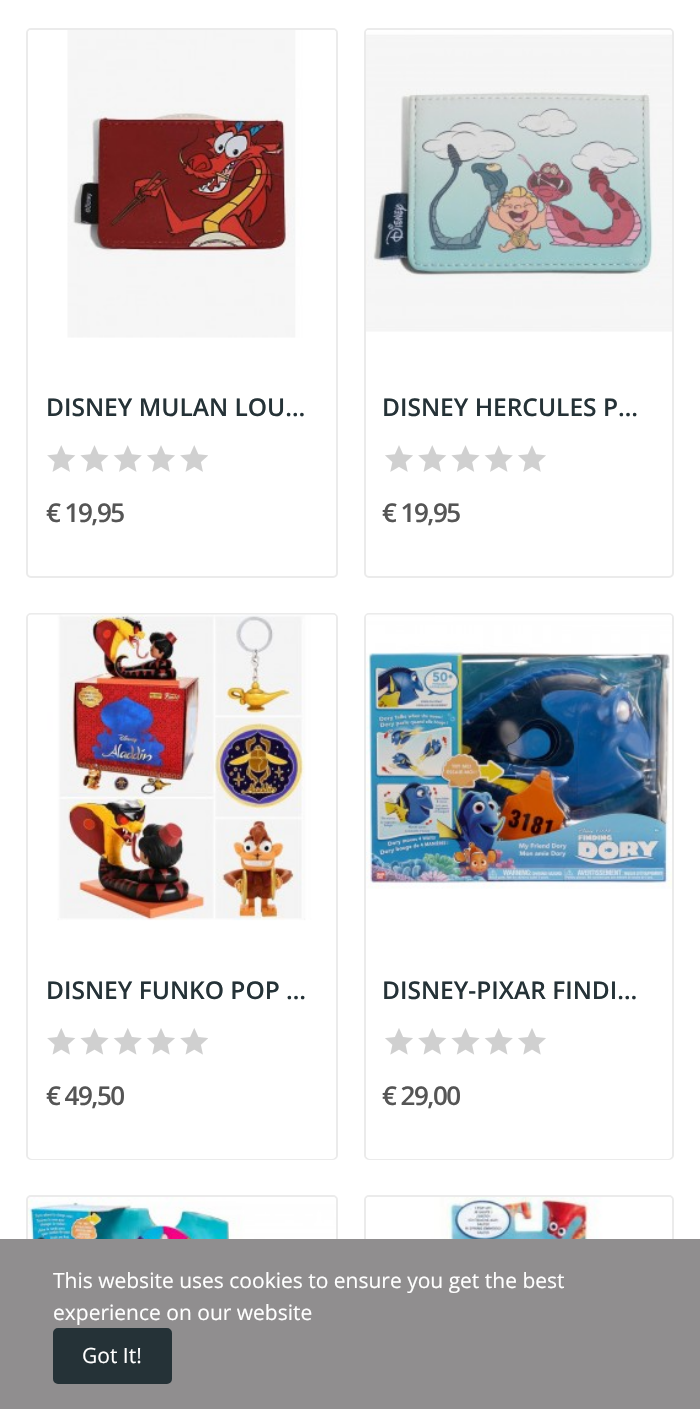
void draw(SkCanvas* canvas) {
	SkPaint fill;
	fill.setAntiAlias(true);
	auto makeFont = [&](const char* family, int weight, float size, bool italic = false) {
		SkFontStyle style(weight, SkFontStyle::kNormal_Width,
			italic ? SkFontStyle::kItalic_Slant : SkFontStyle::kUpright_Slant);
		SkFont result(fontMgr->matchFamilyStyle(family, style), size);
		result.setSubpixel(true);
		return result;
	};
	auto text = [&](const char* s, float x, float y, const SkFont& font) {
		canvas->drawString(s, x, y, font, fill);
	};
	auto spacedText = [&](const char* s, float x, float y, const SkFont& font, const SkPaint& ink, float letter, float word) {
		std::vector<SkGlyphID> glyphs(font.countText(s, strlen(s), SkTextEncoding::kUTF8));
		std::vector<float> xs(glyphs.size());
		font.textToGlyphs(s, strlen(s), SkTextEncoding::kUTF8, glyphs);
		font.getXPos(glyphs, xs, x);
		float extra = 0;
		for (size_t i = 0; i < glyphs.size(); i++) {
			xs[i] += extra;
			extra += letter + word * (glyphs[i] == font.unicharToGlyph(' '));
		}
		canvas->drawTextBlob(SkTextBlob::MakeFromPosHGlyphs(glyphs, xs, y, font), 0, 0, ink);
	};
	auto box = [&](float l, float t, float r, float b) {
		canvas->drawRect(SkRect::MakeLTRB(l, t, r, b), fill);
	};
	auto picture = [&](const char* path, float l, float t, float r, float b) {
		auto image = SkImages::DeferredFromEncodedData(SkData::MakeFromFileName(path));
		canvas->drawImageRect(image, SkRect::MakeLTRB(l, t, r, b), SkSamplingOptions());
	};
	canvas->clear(0xFFFFFFFF);
	fill.setStyle(SkPaint::kStroke_Style);
	fill.setStrokeWidth(2);
	fill.setColor(0xFFEBEBEB);
	canvas->drawRoundRect(SkRect::MakeLTRB(27, 29, 337, 577), 4, 4, fill);
	picture("image0.png", 28, 30, 336, 338);
	picture("image1.png", 47, 445, 208, 472);
	canvas->drawRoundRect(SkRect::MakeLTRB(365, 29, 673, 577), 4, 4, fill);
	picture("image2.png", 366, 30, 672, 332);
	picture("image3.png", 385, 445, 546, 472);
	canvas->drawRoundRect(SkRect::MakeLTRB(27, 614, 337, 1159), 4, 4, fill);
	picture("image4.png", 28, 614, 336, 921);
	fill.setStyle(SkPaint::kFill_Style);
	fill.setColor(0xFFFFFFFF);
	canvas->drawPath(SkPathBuilder().moveTo(28, 921).lineTo(336, 921).lineTo(336, 1155).cubicTo(336, 1157, 334, 1159, 332, 1159).lineTo(32, 1159).cubicTo(30, 1159, 28, 1157, 28, 1155).close().detach(), fill);
	picture("image5.png", 47, 1028, 208, 1055);
	fill.setStyle(SkPaint::kStroke_Style);
	fill.setColor(0xFFEBEBEB);
	canvas->drawRoundRect(SkRect::MakeLTRB(365, 614, 673, 1159), 4, 4, fill);
	picture("image6.png", 366, 614, 672, 889);
	fill.setStyle(SkPaint::kFill_Style);
	fill.setColor(0xFFFFFFFF);
	canvas->drawPath(SkPathBuilder().moveTo(366, 921).lineTo(672, 921).lineTo(672, 1155).cubicTo(672, 1157, 670, 1159, 668, 1159).lineTo(370, 1159).cubicTo(368, 1159, 366, 1157, 366, 1155).close().detach(), fill);
	picture("image7.png", 385, 1028, 546, 1055);
	fill.setStyle(SkPaint::kStroke_Style);
	fill.setColor(0xFFEBEBEB);
	canvas->drawRoundRect(SkRect::MakeLTRB(27, 1196, 337, 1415), 4, 4, fill);
	picture("image8.png", 28, 1197, 336, 1239);
	canvas->drawRoundRect(SkRect::MakeLTRB(365, 1196, 673, 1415), 4, 4, fill);
	picture("image9.png", 366, 1197, 672, 1239);
	fill.setStyle(SkPaint::kFill_Style);
	fill.setColor(0xFF908E8F);
	box(0, 1239, 700, 1409);
	fill.setColor(0xFF253237);
	canvas->drawRoundRect(SkRect::MakeLTRB(55, 1330, 170, 1382), 3, 3, fill);
	fill.setStyle(SkPaint::kStroke_Style);
	fill.setStrokeWidth(4);
	canvas->drawRoundRect(SkRect::MakeLTRB(55, 1330, 170, 1382), 3, 3, fill);
	auto font1 = makeFont("Open Sans", 600, 24.5f);
	fill.setStyle(SkPaint::kFill_Style);
	text("DISNEY MULAN LOU…", 46, 416, font1);
	auto font2 = makeFont("Open Sans", 600, 26);
	fill.setColor(0xFF555555);
	spacedText("€ 19,95", 46, 522, font2, fill, -1.5f, 0);
	fill.setColor(0xFF253237);
	text("DISNEY HERCULES P…", 382, 416, font1);
	fill.setColor(0xFF555555);
	spacedText("€ 19,95", 382, 522, font2, fill, -1.5f, 0);
	fill.setColor(0xFF253237);
	text("DISNEY FUNKO POP …", 46, 999, font1);
	fill.setColor(0xFF555555);
	spacedText("€ 49,50", 46, 1105, font2, fill, -1.5f, 0);
	fill.setColor(0xFF253237);
	text("DISNEY-PIXAR FINDI…", 382, 999, font1);
	fill.setColor(0xFF555555);
	spacedText("€ 29,00", 382, 1105, font2, fill, -1.5f, 0);
	auto font3 = makeFont("Open Sans", 400, 21);
	fill.setColor(0xFFFFFFFF);
	text("This website uses cookies to ensure you get the best", 53, 1288, font3);
	text("experience on our website", 53, 1320, font3);
	text("Got It!", 82, 1363, font3);
}
